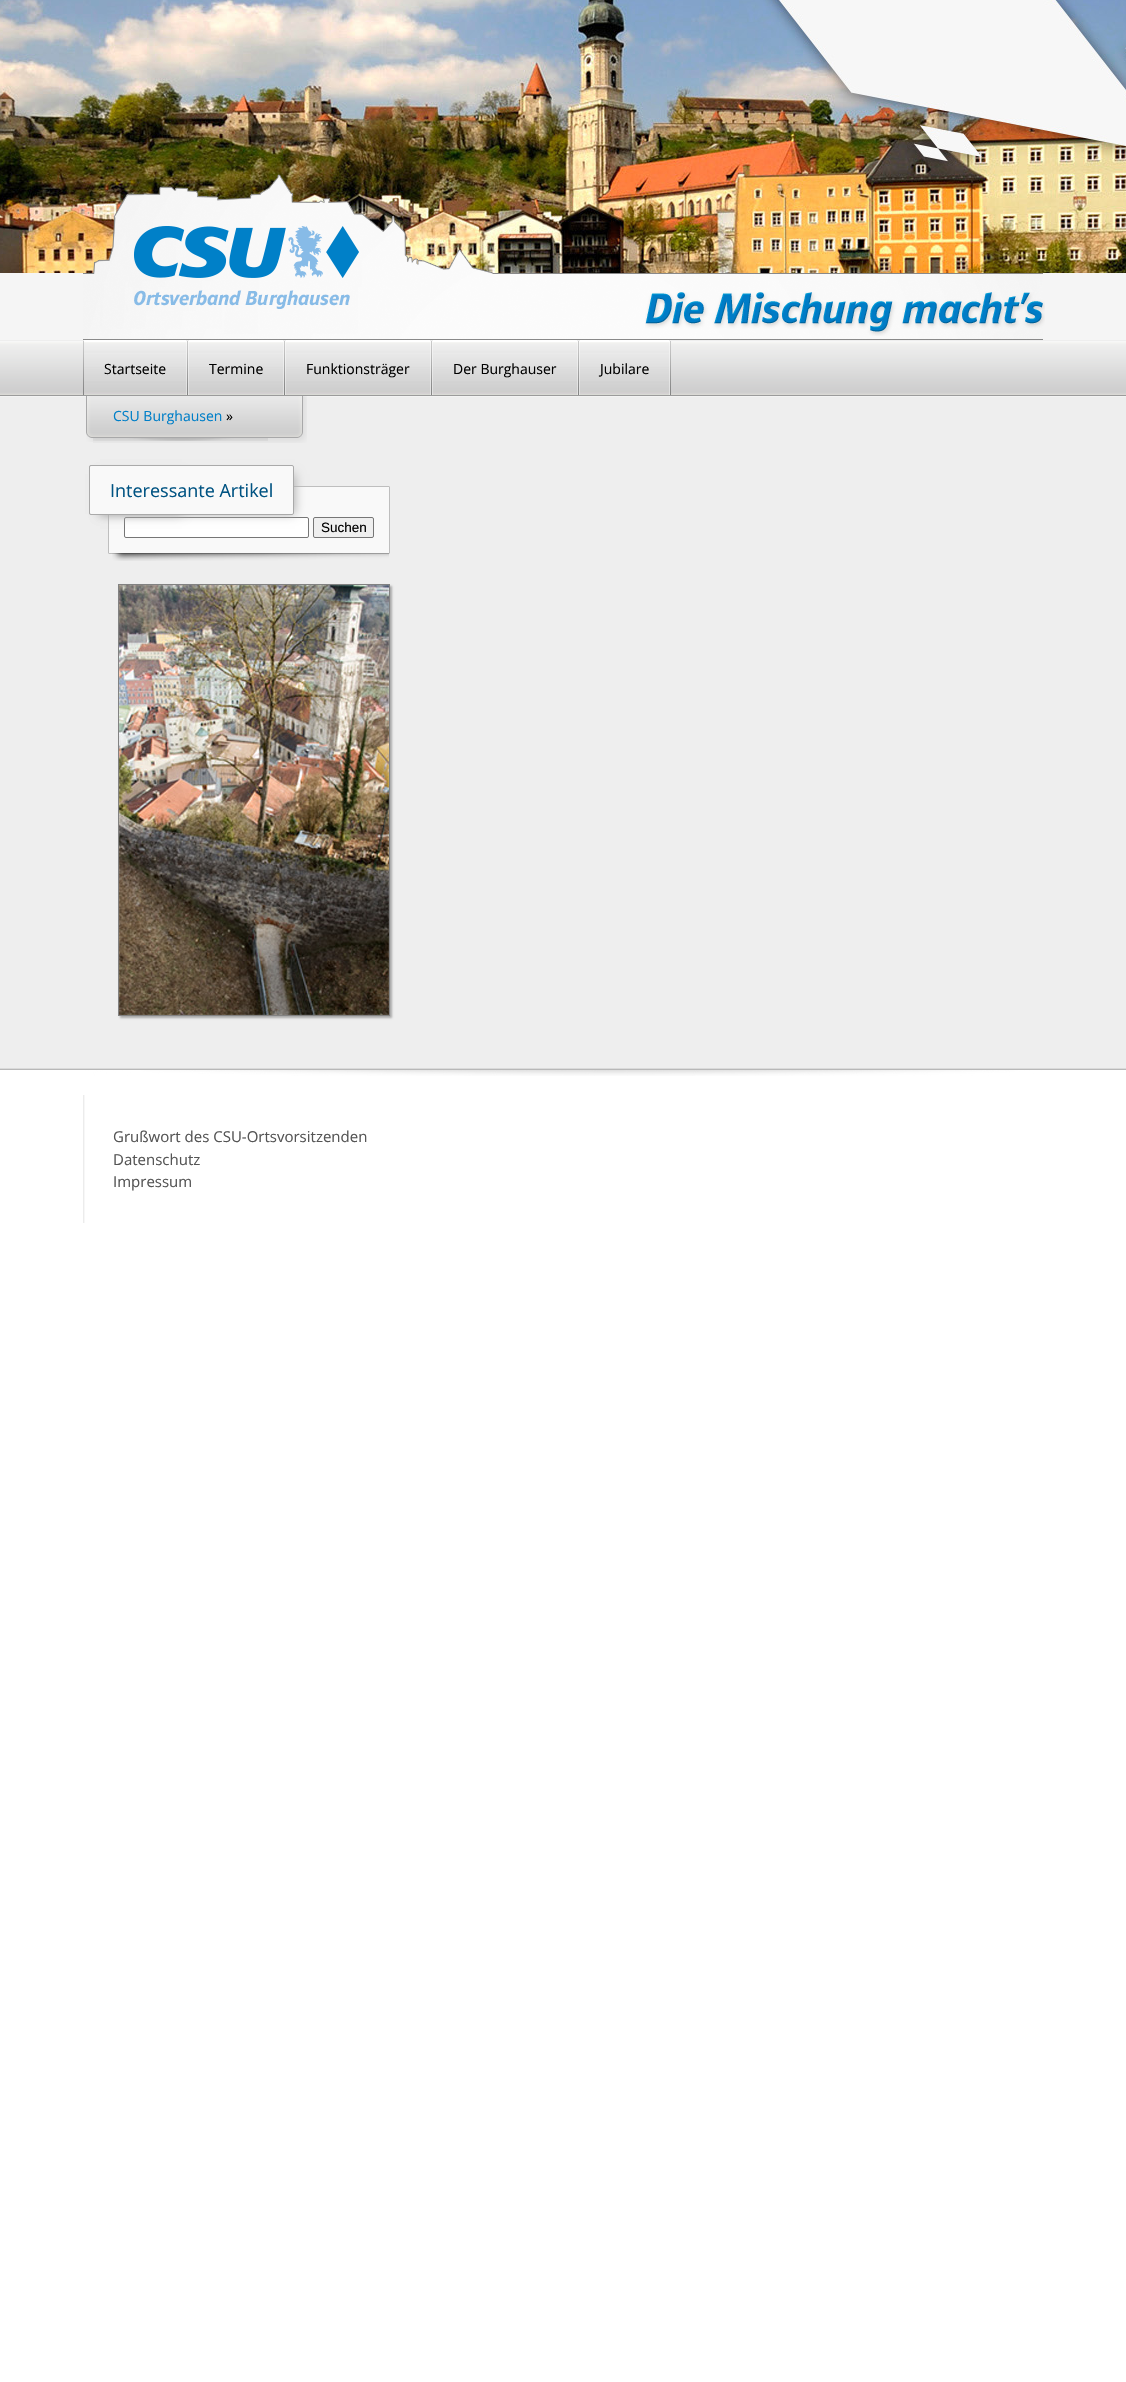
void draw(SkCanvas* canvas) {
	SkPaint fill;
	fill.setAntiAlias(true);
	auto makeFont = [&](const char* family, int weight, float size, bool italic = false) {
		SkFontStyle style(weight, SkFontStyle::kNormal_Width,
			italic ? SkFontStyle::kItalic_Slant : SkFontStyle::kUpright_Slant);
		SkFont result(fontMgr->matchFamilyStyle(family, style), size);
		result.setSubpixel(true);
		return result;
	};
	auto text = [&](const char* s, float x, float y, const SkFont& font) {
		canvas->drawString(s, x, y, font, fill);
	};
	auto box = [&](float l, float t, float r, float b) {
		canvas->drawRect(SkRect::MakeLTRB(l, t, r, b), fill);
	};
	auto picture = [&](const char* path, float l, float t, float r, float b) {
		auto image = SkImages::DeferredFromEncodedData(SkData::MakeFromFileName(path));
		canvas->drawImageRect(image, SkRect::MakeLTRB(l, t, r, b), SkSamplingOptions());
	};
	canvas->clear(0xFFFFFFFF);
	picture("image0.png", 0, 0, 1126, 273);
	fill.setColor(0xFFF5F5F5);
	box(0, 273, 1126, 340);
	picture("image1.png", 83, 174, 1043, 340);
	picture("image2.png", 645, 292, 1045, 336);
	fill.setColor(0xFFEEEEEE);
	box(0, 340, 1126, 1068);
	fill.setColor(0xFFDADADA);
	box(0, 1068, 1126, 1069);
	picture("image3.png", 0, 341, 1126, 397);
	picture("image4.png", 83, 341, 84, 395);
	picture("image5.png", 186, 341, 189, 395);
	picture("image6.png", 84, 340, 186, 395);
	picture("image5.png", 283, 341, 286, 395);
	picture("image7.png", 189, 340, 283, 395);
	picture("image5.png", 430, 341, 433, 395);
	picture("image8.png", 286, 340, 430, 395);
	picture("image5.png", 577, 341, 580, 395);
	picture("image8.png", 433, 340, 577, 395);
	picture("image9.png", 669, 341, 671, 395);
	picture("image10.png", 580, 340, 669, 395);
	picture("image11.png", 86, 396, 93, 442);
	picture("image12.png", 93, 396, 293, 443);
	picture("image13.png", 93, 438, 268, 441);
	picture("image14.png", 293, 396, 307, 443);
	fill.setColor(0xFFF9F9F9);
	canvas->drawRoundRect(SkRect::MakeLTRB(108.5f, 486.5f, 389.5f, 553.5f), 0.5f, 0.5f, fill);
	fill.setStyle(SkPaint::kStroke_Style);
	fill.setStrokeWidth(1);
	fill.setColor(0xFFBEBEBE);
	canvas->drawRoundRect(SkRect::MakeLTRB(108.5f, 486.5f, 389.5f, 553.5f), 0.5f, 0.5f, fill);
	fill.setStyle(SkPaint::kFill_Style);
	fill.setColor(0xFFFFFFFF);
	canvas->drawRoundRect(SkRect::MakeLTRB(124.5f, 517.5f, 308.5f, 537.5f), 1.5f, 1.5f, fill);
	fill.setStyle(SkPaint::kStroke_Style);
	fill.setColor(0xFF767676);
	canvas->drawRoundRect(SkRect::MakeLTRB(124.5f, 517.5f, 308.5f, 537.5f), 1.5f, 1.5f, fill);
	fill.setStyle(SkPaint::kFill_Style);
	fill.setColor(0xFFAFAFAF);
	fill.setMaskFilter(SkMaskFilter::MakeBlur(kNormal_SkBlurStyle, 5));
	canvas->drawRect(SkRect::MakeLTRB(100, 474, 182, 514), fill);
	fill.setMaskFilter(nullptr);
	fill.setStyle(SkPaint::kStroke_Style);
	fill.setColor(0xFFAAAAAA);
	canvas->drawRoundRect(SkRect::MakeLTRB(89.5f, 465.5f, 180.5f, 514.5f), 1.5f, 1.5f, fill);
	fill.setStyle(SkPaint::kFill_Style);
	fill.setColor(0xFFAFAFAF);
	fill.setMaskFilter(SkMaskFilter::MakeBlur(kNormal_SkBlurStyle, 5));
	canvas->drawRect(SkRect::MakeLTRB(100, 474, 295, 514), fill);
	fill.setMaskFilter(nullptr);
	fill.setColor(0xFFF9F9F9);
	canvas->drawRoundRect(SkRect::MakeLTRB(89.5f, 465.5f, 293.5f, 514.5f), 1.5f, 1.5f, fill);
	fill.setStyle(SkPaint::kStroke_Style);
	fill.setColor(0xFFAAAAAA);
	canvas->drawRoundRect(SkRect::MakeLTRB(89.5f, 465.5f, 293.5f, 514.5f), 1.5f, 1.5f, fill);
	fill.setStyle(SkPaint::kFill_Style);
	fill.setColor(0xFFEFEFEF);
	canvas->drawRoundRect(SkRect::MakeLTRB(313.5f, 517.5f, 373.5f, 537.5f), 1.5f, 1.5f, fill);
	fill.setStyle(SkPaint::kStroke_Style);
	fill.setColor(0xFF767676);
	canvas->drawRoundRect(SkRect::MakeLTRB(313.5f, 517.5f, 373.5f, 537.5f), 1.5f, 1.5f, fill);
	picture("image15.png", 112, 553, 389, 561);
	fill.setStyle(SkPaint::kFill_Style);
	fill.setColor(0xFFAAAAAA);
	fill.setMaskFilter(SkMaskFilter::MakeBlur(kNormal_SkBlurStyle, 1));
	canvas->drawRect(SkRect::MakeLTRB(120, 586, 392, 1018), fill);
	fill.setMaskFilter(nullptr);
	fill.setStyle(SkPaint::kStroke_Style);
	fill.setColor(0xFF828282);
	canvas->drawRect(SkRect::MakeLTRB(118.5f, 584.5f, 389.5f, 1015.5f), fill);
	picture("image16.png", 119, 585, 389, 1015);
	picture("image17.png", 83, 1070, 1043, 1076);
	fill.setStyle(SkPaint::kFill_Style);
	fill.setColor(0xFFB8B8B8);
	box(0, 1069, 1126, 1070);
	picture("image18.png", 83, 1095, 85, 1223);
	auto font1 = makeFont("Open Sans", 400, 14);
	fill.setColor(0xFF000000);
	text("Startseite", 104, 374, font1);
	text("Termine", 209, 374, font1);
	text("Funktionsträger", 306, 374, font1);
	text("Der Burghauser", 453, 374, font1);
	text("Jubilare", 600, 374, font1);
	fill.setColor(0xFF007FC8);
	text("CSU Burghausen", 113, 421, font1);
	fill.setColor(0xFF000000);
	text("»", 226, 421, font1);
	auto font2 = makeFont("Open Sans", 400, 18);
	fill.setColor(0xFF005382);
	text("Interessante Artikel", 110, 497, font2);
	auto font3 = makeFont("Liberation Sans", 400, 13.5f);
	fill.setColor(0xFF000000);
	text("Suchen", 321, 532, font3);
	auto font4 = makeFont("Open Sans", 400, 15);
	fill.setColor(0xFF555555);
	text("Grußwort des CSU-Ortsvorsitzenden", 113, 1142, font4);
	text("Datenschutz", 113, 1165, font4);
	text("Impressum", 113, 1187, font4);
}
